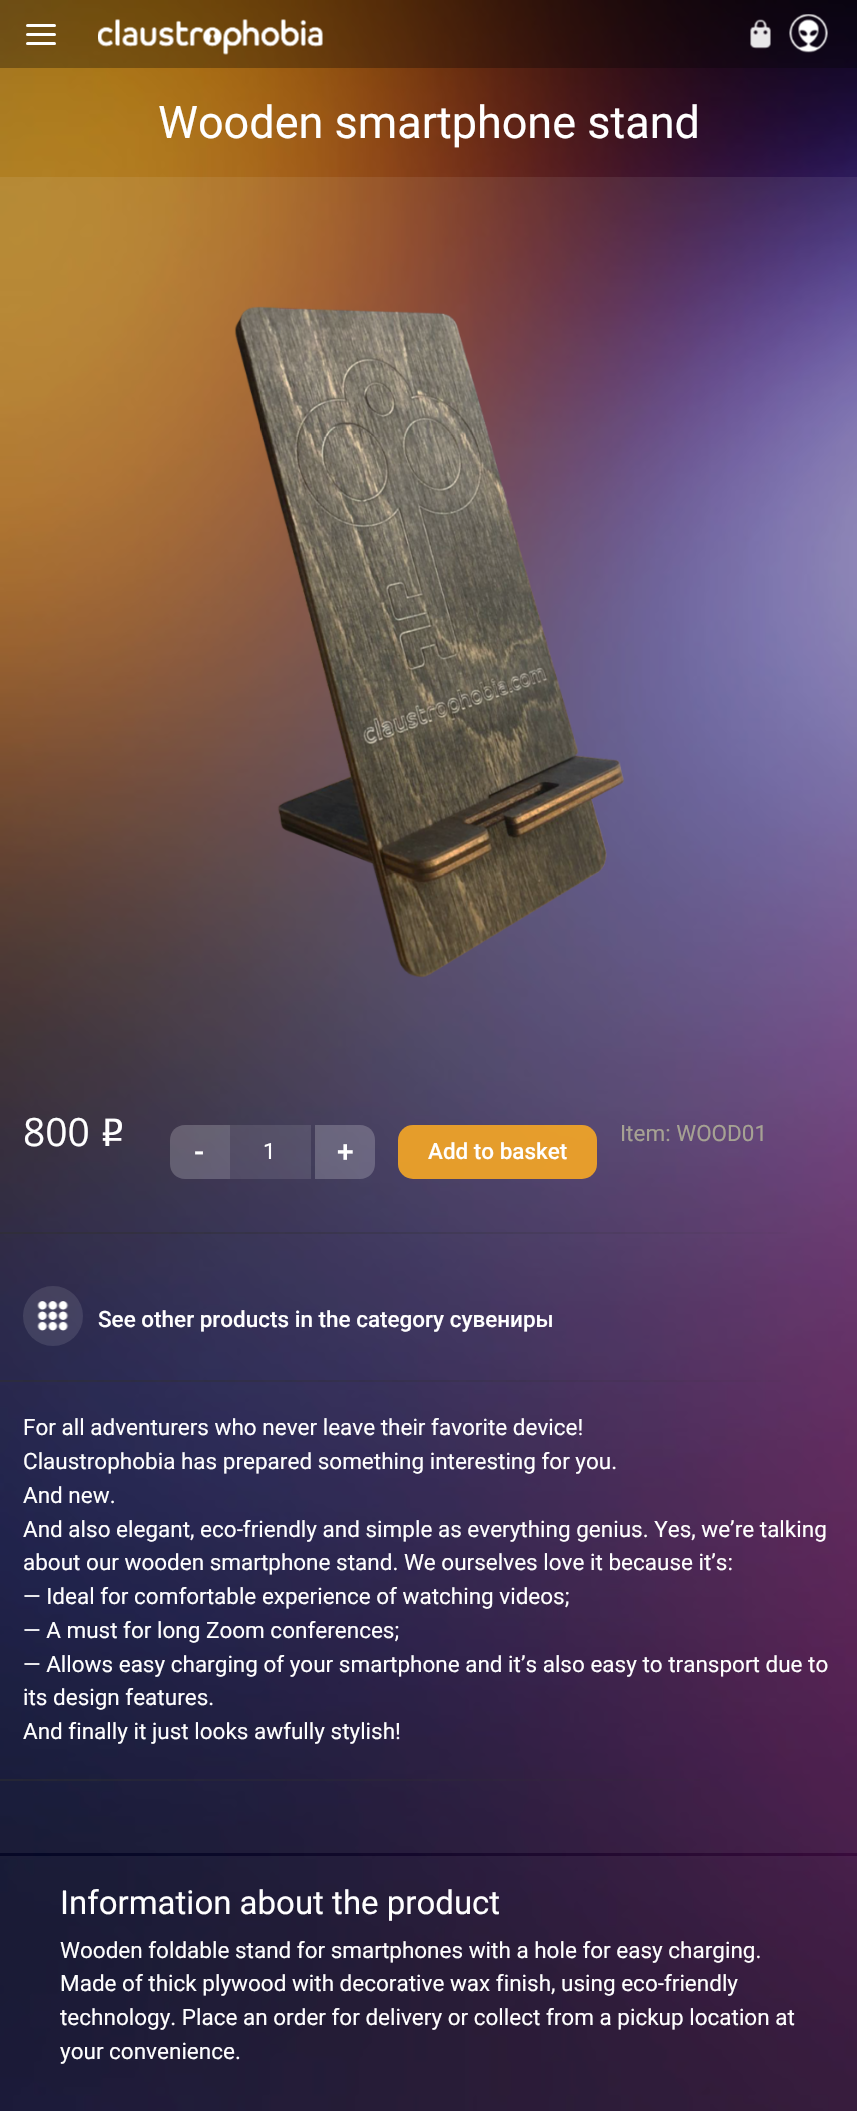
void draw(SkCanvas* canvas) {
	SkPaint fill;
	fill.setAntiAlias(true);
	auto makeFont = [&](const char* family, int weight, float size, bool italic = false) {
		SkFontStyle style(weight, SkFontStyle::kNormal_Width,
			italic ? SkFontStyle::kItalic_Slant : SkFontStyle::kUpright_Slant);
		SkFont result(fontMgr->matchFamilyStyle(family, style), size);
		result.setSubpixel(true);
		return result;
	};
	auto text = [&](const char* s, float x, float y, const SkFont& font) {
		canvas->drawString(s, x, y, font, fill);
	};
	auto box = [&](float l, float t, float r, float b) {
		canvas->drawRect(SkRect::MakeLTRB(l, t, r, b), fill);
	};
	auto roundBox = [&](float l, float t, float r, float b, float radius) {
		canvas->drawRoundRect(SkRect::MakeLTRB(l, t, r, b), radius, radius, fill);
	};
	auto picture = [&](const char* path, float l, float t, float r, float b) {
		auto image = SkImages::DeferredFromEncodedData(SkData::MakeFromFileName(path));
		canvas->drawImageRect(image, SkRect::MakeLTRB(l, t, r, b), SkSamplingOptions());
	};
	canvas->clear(0xFFFFFFFF);
	picture("image0.png", 0, 0, 857, 2111);
	fill.setColor(0x4D000000);
	box(0, 0, 857, 68);
	fill.setColor(0xFFFFFFFF);
	roundBox(26, 24, 56, 27, 1.5f);
	roundBox(26, 33, 56, 36, 1.5f);
	roundBox(26, 42, 56, 45, 1.5f);
	picture("image1.png", 98, 19, 323, 55);
	picture("image2.png", 750, 19, 771, 49);
	picture("image3.png", 789, 14, 828, 53);
	fill.setColor(0x14FFFFFF);
	box(0, 177, 857, 1853);
	picture("image4.png", 234, 306, 624, 978);
	fill.setColor(0x33FFFFFF);
	canvas->drawPath(SkPathBuilder().moveTo(185, 1125).lineTo(230, 1125).lineTo(230, 1179).lineTo(185, 1179).cubicTo(176.5f, 1179, 170, 1172.5f, 170, 1164).lineTo(170, 1140).cubicTo(170, 1131.5f, 176.5f, 1125, 185, 1125).close().detach(), fill);
	fill.setColor(0x1AFFFFFF);
	box(230, 1125, 311, 1179);
	fill.setColor(0x33FFFFFF);
	canvas->drawPath(SkPathBuilder().moveTo(315, 1125).lineTo(360, 1125).cubicTo(368.5f, 1125, 375, 1131.5f, 375, 1140).lineTo(375, 1164).cubicTo(375, 1172.5f, 368.5f, 1179, 360, 1179).lineTo(315, 1179).close().detach(), fill);
	fill.setColor(0xE6F5A625);
	roundBox(398, 1125, 597, 1179, 15);
	{
		const SkColor colors[] = {0x802E2E2E, 0x002E2E2E};
		const float stops[] = {0, 1};
		const SkPoint ends[] = {{0, 1232}, {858, 1232}};
		fill.setShader(SkGradientShader::MakeLinear(ends, colors, stops, 2, SkTileMode::kClamp));
		fill.setAlpha(255);
	}
	box(0, 1232, 787, 1234);
	fill.setShader(nullptr);
	fill.setColor(0x1AFFFFFF);
	canvas->drawCircle(53, 1316, 30, fill);
	picture("image5.png", 37, 1301, 69, 1331);
	{
		const SkColor colors[] = {0x802E2E2E, 0x002E2E2E};
		const float stops[] = {0, 1};
		const SkPoint ends[] = {{0, 1381}, {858, 1381}};
		fill.setShader(SkGradientShader::MakeLinear(ends, colors, stops, 2, SkTileMode::kClamp));
		fill.setAlpha(255);
	}
	box(0, 1380, 781, 1382);
	{
		const SkColor colors[] = {0x802E2E2E, 0x002E2E2E};
		const float stops[] = {0, 1};
		const SkPoint ends[] = {{0, 1780}, {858, 1780}};
		fill.setShader(SkGradientShader::MakeLinear(ends, colors, stops, 2, SkTileMode::kClamp));
		fill.setAlpha(255);
	}
	box(0, 1779, 700, 1781);
	fill.setShader(nullptr);
	fill.setColor(0x14FFFFFF);
	box(0, 1856, 857, 2111);
	auto font1 = makeFont("Roboto", 400, 45);
	fill.setColor(0xFFFFFFFF);
	text("Wooden smartphone stand", 158, 138, font1);
	auto font2 = makeFont("Open Sans", 400, 39);
	text("800", 23, 1146, font2);
	auto font3 = makeFont("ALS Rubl", 400, 39);
	text("o", 100, 1146, font3);
	auto font4 = makeFont("Roboto", 400, 22.5f);
	fill.setColor(0xFFA6A293);
	text("Item: WOOD01", 620, 1141, font4);
	auto font5 = makeFont("Roboto", 500, 30);
	fill.setColor(0xFFFFFFFF);
	text("-", 194, 1162, font5);
	text("1", 263, 1159, font4);
	text("+", 337, 1162, font5);
	auto font6 = makeFont("Roboto", 500, 22.5f);
	text("Add to basket", 428, 1159, font6);
	text("See other products in the category сувениры", 98, 1327, font6);
	text("For all adventurers who never leave their favorite device!", 23, 1435, font4);
	text("Claustrophobia has prepared something interesting for you.", 23, 1469, font4);
	text("And new.", 23, 1503, font4);
	text("Аnd also elegant, eco-friendly and simple as everything genius. Yes, we’re talking", 23, 1537, font4);
	text("about our wooden smartphone stand. We ourselves love it because it’s:", 23, 1570, font4);
	text("— Ideal for comfortable experience of watching videos;", 23, 1604, font4);
	text("— A must for long Zoom conferences;", 23, 1638, font4);
	text("— Allows easy charging of your smartphone and it’s also easy to transport due to", 23, 1672, font4);
	text("its design features.", 23, 1705, font4);
	text("And finally it just looks awfully stylish!", 23, 1739, font4);
	auto font7 = makeFont("Roboto", 400, 33);
	text("Information about the product", 60, 1914, font7);
	text("Wooden foldable stand for smartphones with a hole for easy charging.", 60, 1958, font4);
	text("Made of thick plywood with decorative wax finish, using eco-friendly", 60, 1991, font4);
	text("technology. Place an order for delivery or collect from a pickup location at", 60, 2025, font4);
	text("your convenience.", 60, 2059, font4);
}
